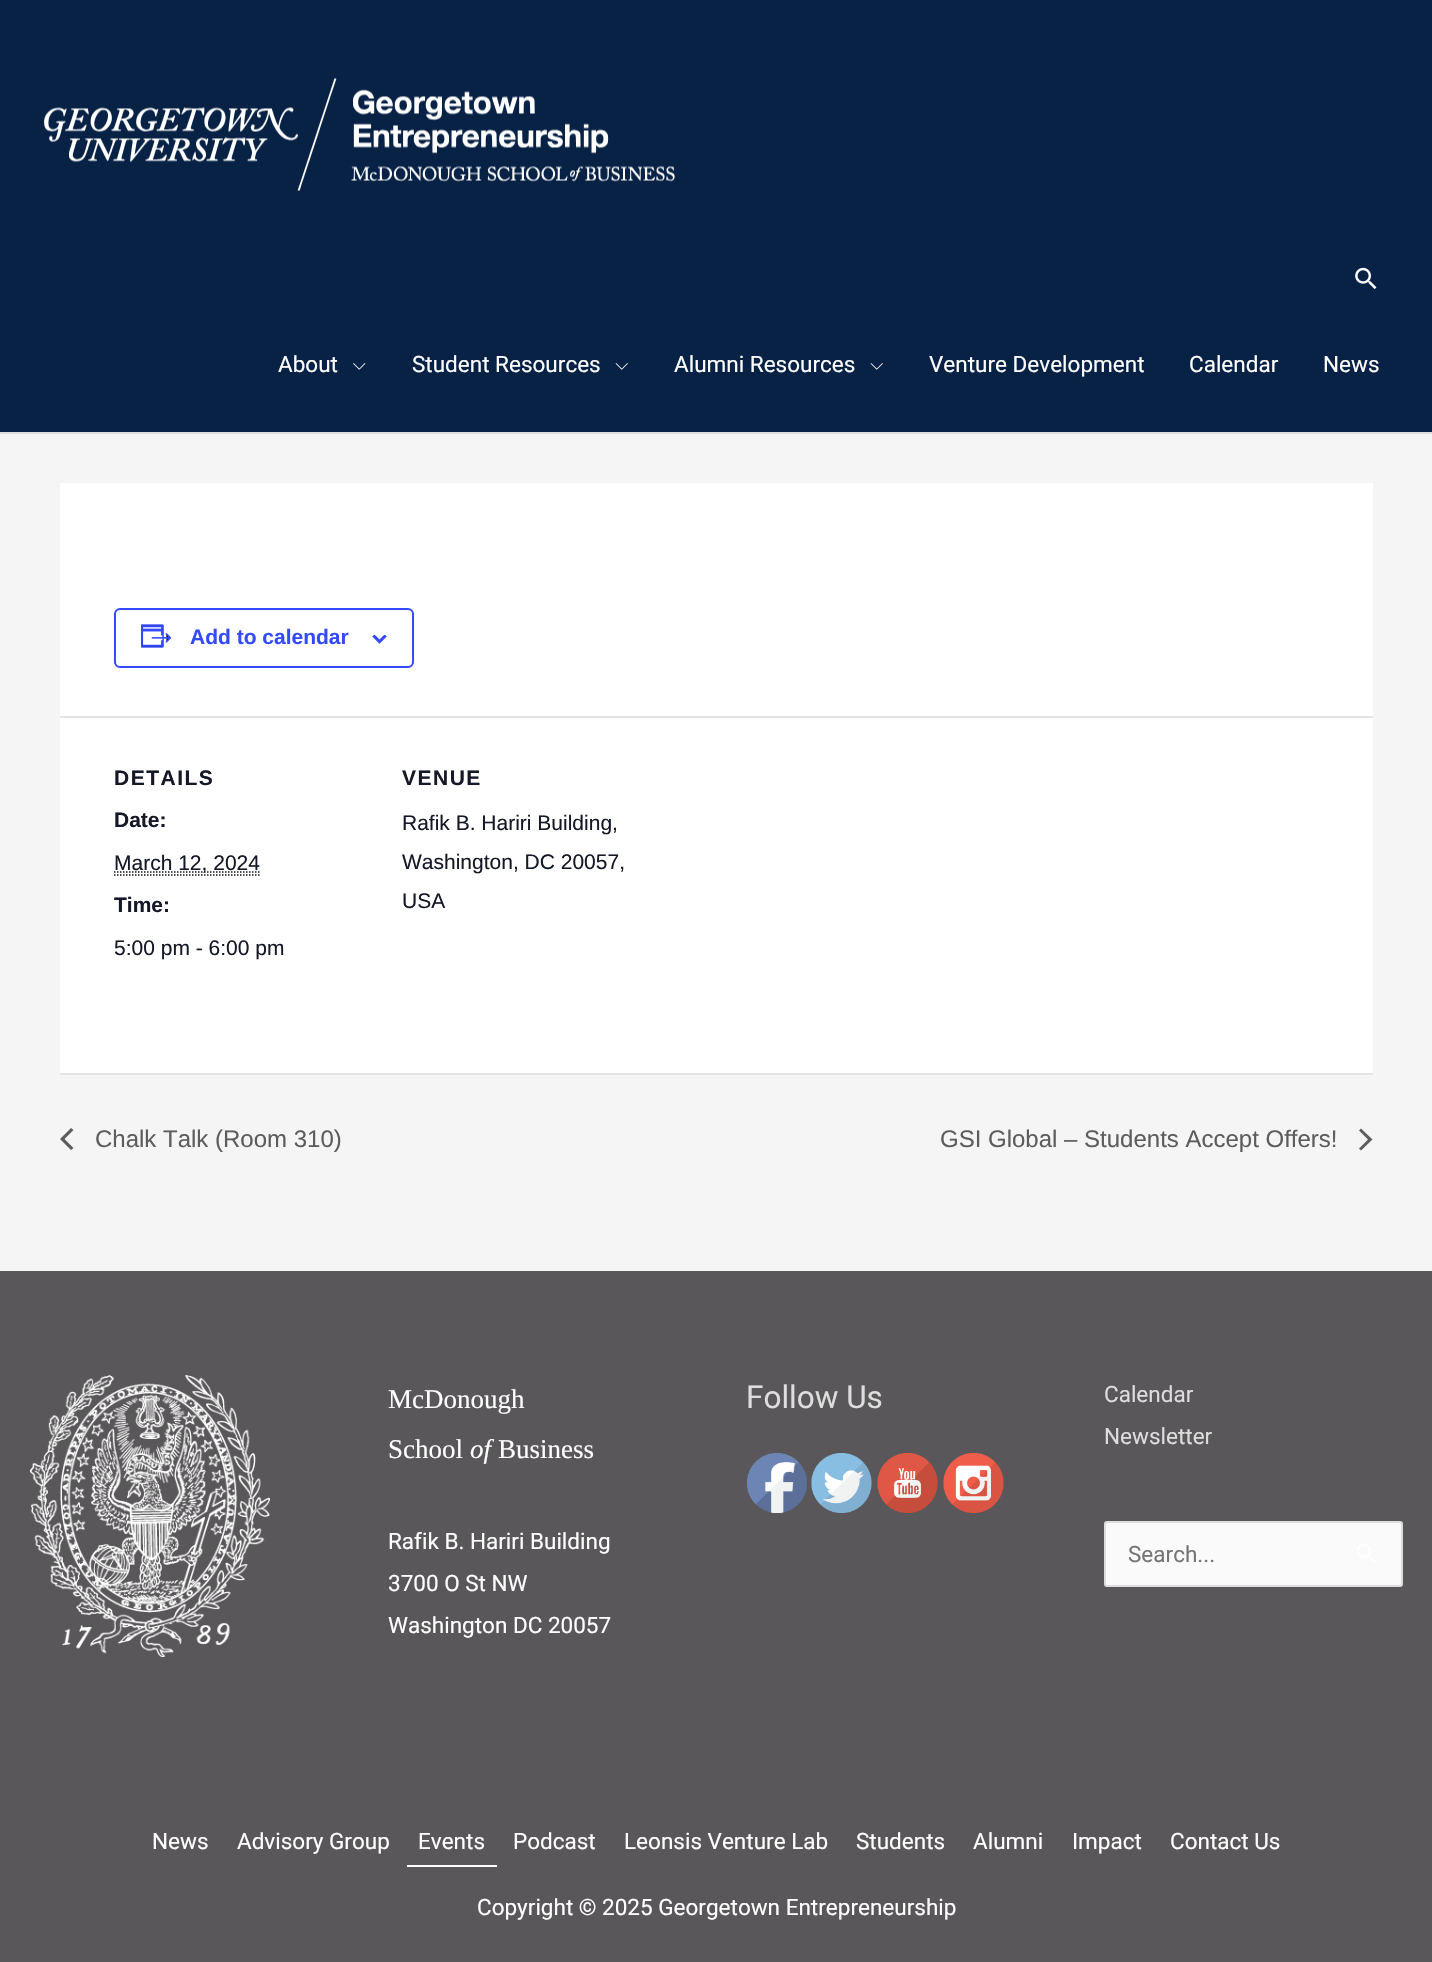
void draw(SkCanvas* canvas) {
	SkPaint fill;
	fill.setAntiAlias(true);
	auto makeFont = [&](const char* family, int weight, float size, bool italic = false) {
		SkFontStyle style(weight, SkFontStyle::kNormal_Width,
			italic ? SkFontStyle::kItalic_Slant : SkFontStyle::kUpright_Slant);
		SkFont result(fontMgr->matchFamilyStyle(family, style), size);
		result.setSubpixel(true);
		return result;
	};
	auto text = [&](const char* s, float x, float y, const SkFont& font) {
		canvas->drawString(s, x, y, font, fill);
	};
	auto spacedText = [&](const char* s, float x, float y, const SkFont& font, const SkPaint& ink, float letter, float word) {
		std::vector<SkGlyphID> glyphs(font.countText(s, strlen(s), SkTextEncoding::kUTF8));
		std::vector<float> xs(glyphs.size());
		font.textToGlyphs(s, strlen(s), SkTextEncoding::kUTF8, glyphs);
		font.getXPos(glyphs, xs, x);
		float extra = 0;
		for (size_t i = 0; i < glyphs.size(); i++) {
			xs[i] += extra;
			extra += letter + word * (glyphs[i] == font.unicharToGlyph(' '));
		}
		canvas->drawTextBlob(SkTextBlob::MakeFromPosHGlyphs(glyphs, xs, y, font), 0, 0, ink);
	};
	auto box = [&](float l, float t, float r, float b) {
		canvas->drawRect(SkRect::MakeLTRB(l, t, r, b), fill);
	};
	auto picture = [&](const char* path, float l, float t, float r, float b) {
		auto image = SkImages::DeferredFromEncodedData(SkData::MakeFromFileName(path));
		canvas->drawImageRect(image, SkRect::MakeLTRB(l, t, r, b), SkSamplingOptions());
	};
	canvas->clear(0xFFF5F5F5);
	fill.setColor(0xFF082246);
	box(0, 0, 1432, 432);
	fill.setColor(0xFFDDDDDD);
	box(0, 432, 1432, 434);
	picture("image0.png", 44, 78, 675, 191);
	picture("image1.png", 1355, 267, 1377, 289);
	picture("image2.png", 353, 363, 366, 370);
	picture("image3.png", 615, 363, 628, 370);
	picture("image3.png", 870, 363, 883, 370);
	fill.setColor(0xFFFFFFFF);
	box(60, 483, 1373, 1073);
	fill.setStyle(SkPaint::kStroke_Style);
	fill.setStrokeWidth(2);
	fill.setColor(0xFF334AFF);
	canvas->drawRoundRect(SkRect::MakeLTRB(115, 609, 413, 667), 5, 5, fill);
	picture("image4.png", 141, 624, 172, 648);
	picture("image5.png", 372, 635, 387, 644);
	fill.setStyle(SkPaint::kFill_Style);
	fill.setColor(0xFFE4E4E4);
	box(60, 716, 1373, 718);
	fill.setStyle(SkPaint::kStroke_Style);
	fill.setStrokeWidth(1.5f);
	fill.setColor(0xFF141827);
	fill.setPathEffect(SkDashPathEffect::Make({{1.5f, 1.5f}}, 0));
	canvas->drawPath(SkPathBuilder().moveTo(114, 875).lineTo(259.5f, 875).detach(), fill);
	fill.setPathEffect(nullptr);
	fill.setPathEffect(SkDashPathEffect::Make({{1.5f, 1.5f}}, 0));
	canvas->drawPath(SkPathBuilder().moveTo(114, 872).lineTo(260, 872).detach(), fill);
	fill.setPathEffect(nullptr);
	fill.setStyle(SkPaint::kFill_Style);
	fill.setColor(0xFFE4E4E4);
	box(60, 1073, 1373, 1075);
	fill.setColor(0xFF5D5D5D);
	canvas->drawPath(SkPathBuilder().moveTo(73.5f, 1148).lineTo(71, 1150).lineTo(60, 1139).lineTo(71, 1128).lineTo(73.5f, 1130).lineTo(64.5f, 1139).close().detach(), fill);
	canvas->drawPath(SkPathBuilder().moveTo(1359, 1130.5f).lineTo(1361, 1128.5f).lineTo(1372.5f, 1139.5f).lineTo(1361, 1150.5f).lineTo(1359, 1148.5f).lineTo(1368, 1139.5f).close().detach(), fill);
	fill.setColor(0xFF5A575A);
	box(0, 1271, 1432, 1962);
	picture("image6.png", 30, 1375, 270, 1657);
	picture("image7.png", 747, 1453, 807, 1513);
	picture("image8.png", 811, 1453, 872, 1513);
	picture("image9.png", 877, 1453, 938, 1513);
	picture("image10.png", 943, 1453, 1004, 1513);
	fill.setColor(0xFFFAFAFA);
	canvas->drawRoundRect(SkRect::MakeLTRB(1105, 1522, 1402, 1586), 2, 2, fill);
	fill.setStyle(SkPaint::kStroke_Style);
	fill.setStrokeWidth(2);
	fill.setColor(0xFFDDDDDD);
	canvas->drawRoundRect(SkRect::MakeLTRB(1105, 1522, 1402, 1586), 2, 2, fill);
	picture("image11.png", 1357, 1544, 1375, 1563);
	fill.setStyle(SkPaint::kFill_Style);
	fill.setColor(0xFFFFFFFF);
	box(407, 1865, 497, 1867);
	auto font1 = makeFont("Roboto", 400, 22.5f);
	text("About", 278, 372, font1);
	text("Student Resources", 412, 372, font1);
	text("Alumni Resources", 674, 372, font1);
	text("Venture Development", 929, 372, font1);
	text("Calendar", 1189, 372, font1);
	text("News", 1323, 372, font1);
	auto font2 = makeFont("Liberation Sans", 700, 21);
	fill.setColor(0xFF334AFF);
	text("Add to calendar", 190, 644, font2);
	fill.setColor(0xFF141827);
	spacedText("DETAILS", 114, 785, font2, fill, 1.5f, 0);
	text("Date:", 114, 827, font2);
	auto font3 = makeFont("Liberation Sans", 400, 21);
	text("March 12, 2024", 114, 870, font3);
	text("Time:", 114, 912, font2);
	text("5:00 pm - 6:00 pm", 114, 955, font3);
	spacedText("VENUE", 402, 785, font2, fill, 1.5f, 0);
	text("Rafik B. Hariri Building,", 402, 830, font3);
	text("Washington, DC 20057,", 402, 869, font3);
	text("USA", 402, 908, font3);
	auto font4 = makeFont("Liberation Sans", 400, 24);
	fill.setColor(0xFF5D5D5D);
	text("Chalk Talk (Room 310)", 95, 1147, font4);
	text("GSI Global – Students Accept Offers!", 940, 1147, font4);
	auto font5 = makeFont("Liberation Serif", 400, 27);
	fill.setColor(0xFFFFFFFF);
	text("McDonough", 388, 1408, font5);
	text("School", 388, 1458, font5);
	auto font6 = makeFont("Liberation Serif", 400, 27, true);
	text("of", 470, 1458, font6);
	text("Business", 498, 1458, font5);
	text("Rafik B. Hariri Building", 388, 1549, font1);
	text("3700 O St NW", 388, 1591, font1);
	text("Washington DC 20057", 388, 1633, font1);
	auto font7 = makeFont("Roboto", 400, 31.5f);
	fill.setColor(0xFFDDDDDD);
	text("Follow Us", 746, 1408, font7);
	text("Calendar", 1104, 1402, font1);
	text("Newsletter", 1104, 1444, font1);
	fill.setColor(0xFF757575);
	text("Search...", 1128, 1562, font1);
	fill.setColor(0xFFFFFFFF);
	text("News", 152, 1849, font1);
	text("Advisory Group", 237, 1849, font1);
	text("Events", 418, 1849, font1);
	text("Podcast", 513, 1849, font1);
	text("Leonsis Venture Lab", 624, 1849, font1);
	text("Students", 856, 1849, font1);
	text("Alumni", 973, 1849, font1);
	text("Impact", 1072, 1849, font1);
	text("Contact Us", 1170, 1849, font1);
	text("Copyright © 2025 Georgetown Entrepreneurship", 477, 1915, font1);
}
